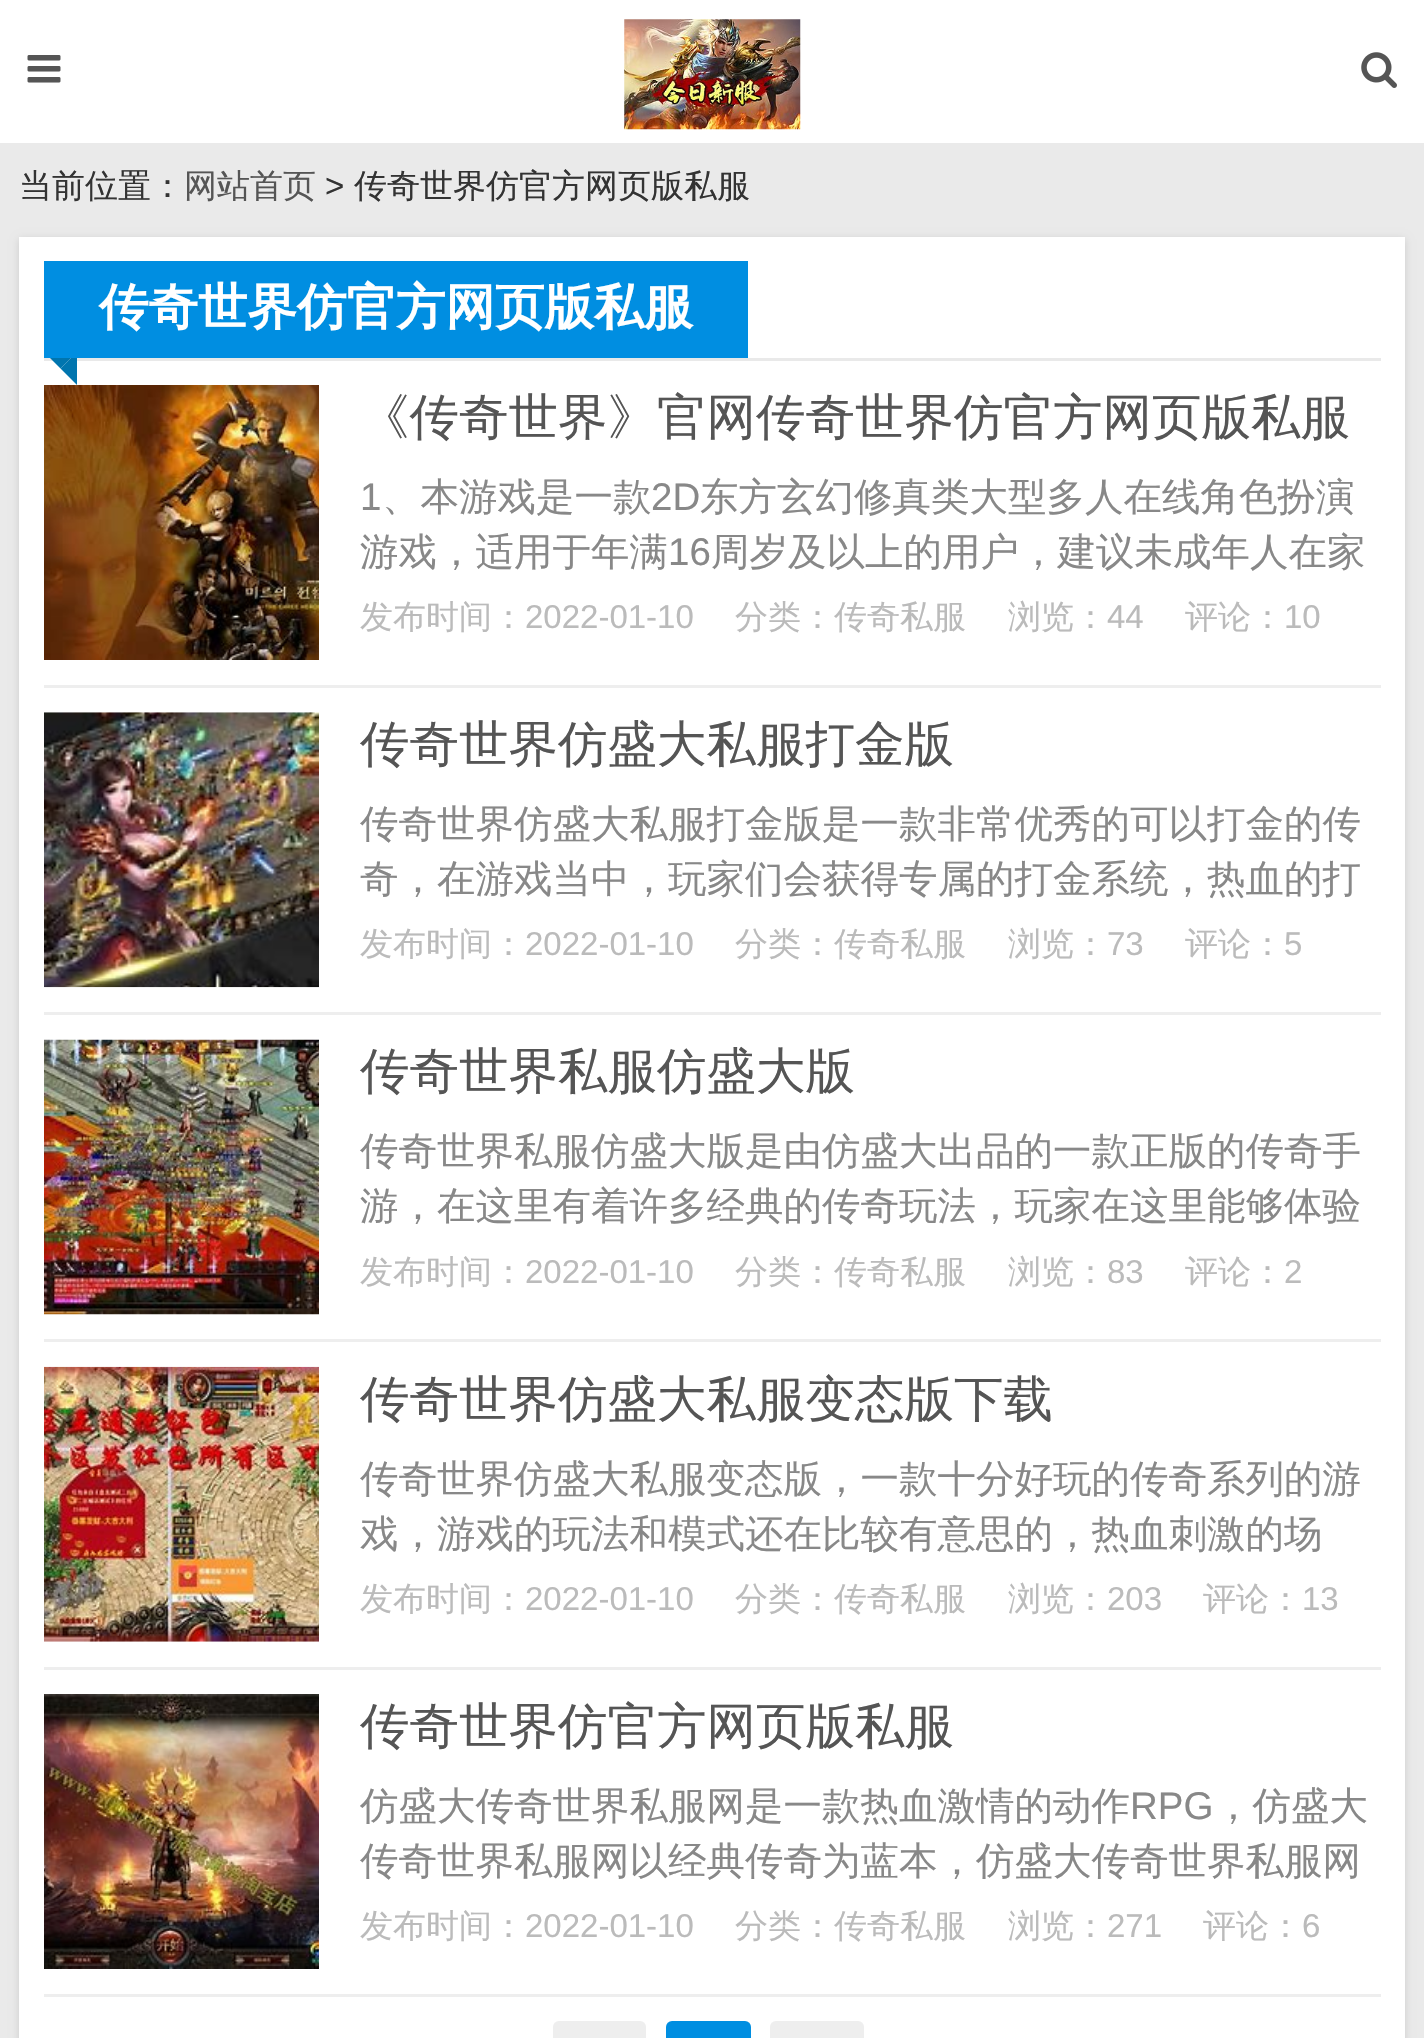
void draw(SkCanvas* canvas) {
	SkPaint fill;
	fill.setAntiAlias(true);
	auto makeFont = [&](const char* family, int weight, float size, bool italic = false) {
		SkFontStyle style(weight, SkFontStyle::kNormal_Width,
			italic ? SkFontStyle::kItalic_Slant : SkFontStyle::kUpright_Slant);
		SkFont result(fontMgr->matchFamilyStyle(family, style), size);
		result.setSubpixel(true);
		return result;
	};
	auto text = [&](const char* s, float x, float y, const SkFont& font) {
		canvas->drawString(s, x, y, font, fill);
	};
	auto box = [&](float l, float t, float r, float b) {
		canvas->drawRect(SkRect::MakeLTRB(l, t, r, b), fill);
	};
	auto roundBox = [&](float l, float t, float r, float b, float radius) {
		canvas->drawRoundRect(SkRect::MakeLTRB(l, t, r, b), radius, radius, fill);
	};
	auto picture = [&](const char* path, float l, float t, float r, float b) {
		auto image = SkImages::DeferredFromEncodedData(SkData::MakeFromFileName(path));
		canvas->drawImageRect(image, SkRect::MakeLTRB(l, t, r, b), SkSamplingOptions());
	};
	canvas->clear(0xFFEAEAEA);
	fill.setColor(0xFFFFFFFF);
	box(0, 0, 1424, 143);
	picture("image0.png", 27, 55, 61, 83);
	picture("image1.png", 624, 19, 801, 130);
	picture("image2.png", 1361, 52, 1397, 88);
	fill.setColor(0xFFCCCCCC);
	fill.setMaskFilter(SkMaskFilter::MakeBlur(kNormal_SkBlurStyle, 4));
	canvas->drawRect(SkRect::MakeLTRB(19, 239, 1405, 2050), fill);
	fill.setMaskFilter(nullptr);
	fill.setColor(0xFFFFFFFF);
	box(19, 237, 1405, 2038);
	fill.setColor(0xFFE9E9E9);
	box(44, 358, 1381, 361);
	fill.setColor(0xFF0075AF);
	canvas->drawPath(SkPathBuilder().moveTo(44, 352).lineTo(77, 352).lineTo(60.5f, 368.5f).close().detach(), fill);
	canvas->drawPath(SkPathBuilder().moveTo(77, 352).lineTo(77, 385).lineTo(60.5f, 368.5f).close().detach(), fill);
	fill.setColor(0xFF008EE1);
	box(44, 261, 748, 358);
	picture("image3.png", 44, 385, 319, 660);
	fill.setColor(0xFFEEEEEE);
	box(44, 685, 1381, 688);
	picture("image4.png", 44, 712, 319, 988);
	box(44, 1012, 1381, 1015);
	picture("image5.png", 44, 1039, 319, 1315);
	box(44, 1339, 1381, 1342);
	picture("image6.png", 44, 1366, 319, 1642);
	box(44, 1667, 1381, 1670);
	picture("image7.png", 44, 1694, 319, 1969);
	box(44, 1994, 1381, 1997);
	roundBox(553, 2021, 646, 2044, 6);
	fill.setColor(0xFF008EE1);
	roundBox(666, 2021, 751, 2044, 6);
	fill.setColor(0xFFEEEEEE);
	roundBox(770, 2021, 864, 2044, 6);
	auto font1 = makeFont("WenQuanYi Zen Hei", 500, 33);
	fill.setColor(0xFF333333);
	text("当前位置：", 19, 197, font1);
	fill.setColor(0xFF555555);
	text("网站首页", 184, 197, font1);
	auto font2 = makeFont("Liberation Sans", 400, 33);
	fill.setColor(0xFF333333);
	text(">", 325, 197, font2);
	text("传奇世界仿官方网页版私服", 354, 197, font1);
	auto font3 = makeFont("WenQuanYi Zen Hei", 700, 49.5f);
	fill.setColor(0xFFFFFFFF);
	text("传奇世界仿官方网页版私服", 99, 324, font3);
	auto font4 = makeFont("WenQuanYi Zen Hei", 500, 49.5f);
	fill.setColor(0xFF555555);
	text("《传奇世界》官网传奇世界仿官方网页版私服", 360, 434, font4);
	auto font5 = makeFont("Liberation Sans", 400, 38.5f);
	fill.setColor(0xFF888888);
	text("1", 360, 510, font5);
	auto font6 = makeFont("WenQuanYi Zen Hei", 500, 38.5f);
	text("、本游戏是一款", 382, 510, font6);
	text("2D", 651, 510, font5);
	text("东方玄幻修真类大型多人在线角色扮演", 700, 510, font6);
	text("游戏，适用于年满", 360, 565, font6);
	text("16", 668, 565, font5);
	text("周岁及以上的用户，建议未成年人在家", 711, 565, font6);
	fill.setColor(0xFFBBBBBB);
	text("发布时间：", 360, 628, font1);
	text("2022-01-10", 525, 628, font2);
	text("分类：传奇私服", 735, 628, font1);
	text("浏览：", 1008, 628, font1);
	text("44", 1107, 628, font2);
	text("评论：", 1185, 628, font1);
	text("10", 1284, 628, font2);
	fill.setColor(0xFF555555);
	text("传奇世界仿盛大私服打金版", 360, 761, font4);
	fill.setColor(0xFF888888);
	text("传奇世界仿盛大私服打金版是一款非常优秀的可以打金的传", 360, 837, font6);
	text("奇，在游戏当中，玩家们会获得专属的打金系统，热血的打", 360, 892, font6);
	fill.setColor(0xFFBBBBBB);
	text("发布时间：", 360, 955, font1);
	text("2022-01-10", 525, 955, font2);
	text("分类：传奇私服", 735, 955, font1);
	text("浏览：", 1008, 955, font1);
	text("73", 1107, 955, font2);
	text("评论：", 1185, 955, font1);
	text("5", 1284, 955, font2);
	fill.setColor(0xFF555555);
	text("传奇世界私服仿盛大版", 360, 1088, font4);
	fill.setColor(0xFF888888);
	text("传奇世界私服仿盛大版是由仿盛大出品的一款正版的传奇手", 360, 1164, font6);
	text("游，在这里有着许多经典的传奇玩法，玩家在这里能够体验", 360, 1219, font6);
	fill.setColor(0xFFBBBBBB);
	text("发布时间：", 360, 1283, font1);
	text("2022-01-10", 525, 1283, font2);
	text("分类：传奇私服", 735, 1283, font1);
	text("浏览：", 1008, 1283, font1);
	text("83", 1107, 1283, font2);
	text("评论：", 1185, 1283, font1);
	text("2", 1284, 1283, font2);
	fill.setColor(0xFF555555);
	text("传奇世界仿盛大私服变态版下载", 360, 1416, font4);
	fill.setColor(0xFF888888);
	text("传奇世界仿盛大私服变态版，一款十分好玩的传奇系列的游", 360, 1492, font6);
	text("戏，游戏的玩法和模式还在比较有意思的，热血刺激的场", 360, 1547, font6);
	fill.setColor(0xFFBBBBBB);
	text("发布时间：", 360, 1610, font1);
	text("2022-01-10", 525, 1610, font2);
	text("分类：传奇私服", 735, 1610, font1);
	text("浏览：", 1008, 1610, font1);
	text("203", 1107, 1610, font2);
	text("评论：", 1203, 1610, font1);
	text("13", 1302, 1610, font2);
	fill.setColor(0xFF555555);
	text("传奇世界仿官方网页版私服", 360, 1743, font4);
	fill.setColor(0xFF888888);
	text("仿盛大传奇世界私服网是一款热血激情的动作", 360, 1819, font6);
	text("RPG", 1130, 1819, font5);
	text("，仿盛大", 1214, 1819, font6);
	text("传奇世界私服网以经典传奇为蓝本，仿盛大传奇世界私服网", 360, 1874, font6);
	fill.setColor(0xFFBBBBBB);
	text("发布时间：", 360, 1937, font1);
	text("2022-01-10", 525, 1937, font2);
	text("分类：传奇私服", 735, 1937, font1);
	text("浏览：", 1008, 1937, font1);
	text("271", 1107, 1937, font2);
	text("评论：", 1203, 1937, font1);
	text("6", 1302, 1937, font2);
}
